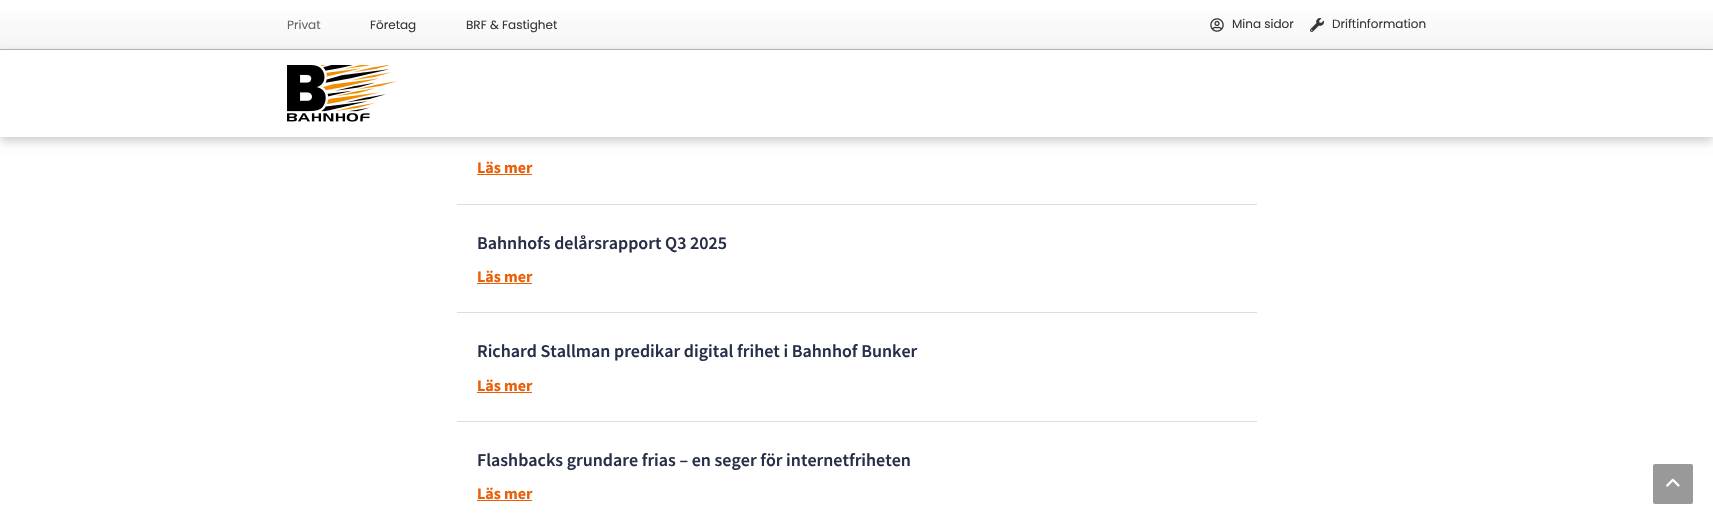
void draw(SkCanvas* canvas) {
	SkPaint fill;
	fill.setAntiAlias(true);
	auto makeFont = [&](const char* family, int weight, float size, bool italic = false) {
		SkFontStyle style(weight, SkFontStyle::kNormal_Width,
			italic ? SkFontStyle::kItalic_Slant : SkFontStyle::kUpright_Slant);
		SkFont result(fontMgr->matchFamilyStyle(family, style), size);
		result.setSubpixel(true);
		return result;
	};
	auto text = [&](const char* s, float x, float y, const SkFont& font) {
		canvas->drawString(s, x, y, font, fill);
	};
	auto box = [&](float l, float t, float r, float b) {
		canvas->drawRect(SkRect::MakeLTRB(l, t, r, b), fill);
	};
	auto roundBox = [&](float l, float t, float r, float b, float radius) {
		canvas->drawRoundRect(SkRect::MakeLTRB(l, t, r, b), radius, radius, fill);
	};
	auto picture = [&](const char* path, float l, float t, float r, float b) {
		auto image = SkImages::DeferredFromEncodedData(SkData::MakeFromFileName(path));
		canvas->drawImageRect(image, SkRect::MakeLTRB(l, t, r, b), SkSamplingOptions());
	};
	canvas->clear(0xFFFFFFFF);
	{
		const SkColor colors[] = {0xFFFFFFFF, 0xFFF5F5F5};
		const float stops[] = {0, 1};
		const SkPoint ends[] = {{857, 0}, {857, 49}};
		fill.setShader(SkGradientShader::MakeLinear(ends, colors, stops, 2, SkTileMode::kClamp));
		fill.setAlpha(255);
	}
	box(0, 12, 1713, 49);
	fill.setShader(nullptr);
	fill.setColor(0xFFB8B8B8);
	box(0, 49, 1713, 50);
	picture("image0.png", 1210, 18, 1224, 32);
	picture("image1.png", 1310, 18, 1324, 32);
	fill.setColor(0x33000000);
	fill.setMaskFilter(SkMaskFilter::MakeBlur(kNormal_SkBlurStyle, 5));
	canvas->drawRect(SkRect::MakeLTRB(0, 54, 1713, 141), fill);
	fill.setMaskFilter(nullptr);
	fill.setColor(0xFFFFFFFF);
	box(0, 50, 1713, 137);
	picture("image2.png", 287, 65, 397, 122);
	fill.setColor(0xFFDDDDDD);
	box(457, 204, 1257, 205);
	fill.setColor(0xFFEA600A);
	box(477, 174, 532, 175);
	fill.setColor(0xFFDDDDDD);
	box(457, 312, 1257, 313);
	fill.setColor(0xFFEA600A);
	box(477, 283, 532, 284);
	fill.setColor(0xFFDDDDDD);
	box(457, 421, 1257, 422);
	fill.setColor(0xFFEA600A);
	box(477, 392, 532, 393);
	box(477, 500, 532, 501);
	fill.setColor(0xFF999999);
	roundBox(1653, 464, 1693, 504, 2);
	picture("image3.png", 1666, 478, 1680, 487);
	auto font1 = makeFont("Poppins", 400, 12);
	fill.setColor(0xFF666666);
	text("Privat", 287, 29, font1);
	fill.setColor(0xFF363636);
	text("Företag", 370, 29, font1);
	text("BRF & Fastighet", 466, 29, font1);
	text("Mina sidor", 1232, 28, font1);
	text("Driftinformation", 1332, 28, font1);
	auto font2 = makeFont("Source Sans Pro", 700, 16);
	fill.setColor(0xFFEA600A);
	text("Läs mer", 477, 173, font2);
	auto font3 = makeFont("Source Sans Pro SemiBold", 600, 18);
	fill.setColor(0xFF272E47);
	text("Bahnhofs delårsrapport Q3 2025", 477, 249, font3);
	fill.setColor(0xFFEA600A);
	text("Läs mer", 477, 282, font2);
	fill.setColor(0xFF272E47);
	text("Richard Stallman predikar digital frihet i Bahnhof Bunker", 477, 357, font3);
	fill.setColor(0xFFEA600A);
	text("Läs mer", 477, 391, font2);
	fill.setColor(0xFF272E47);
	text("Flashbacks grundare frias – en seger för internetfriheten", 477, 466, font3);
	fill.setColor(0xFFEA600A);
	text("Läs mer", 477, 499, font2);
}
